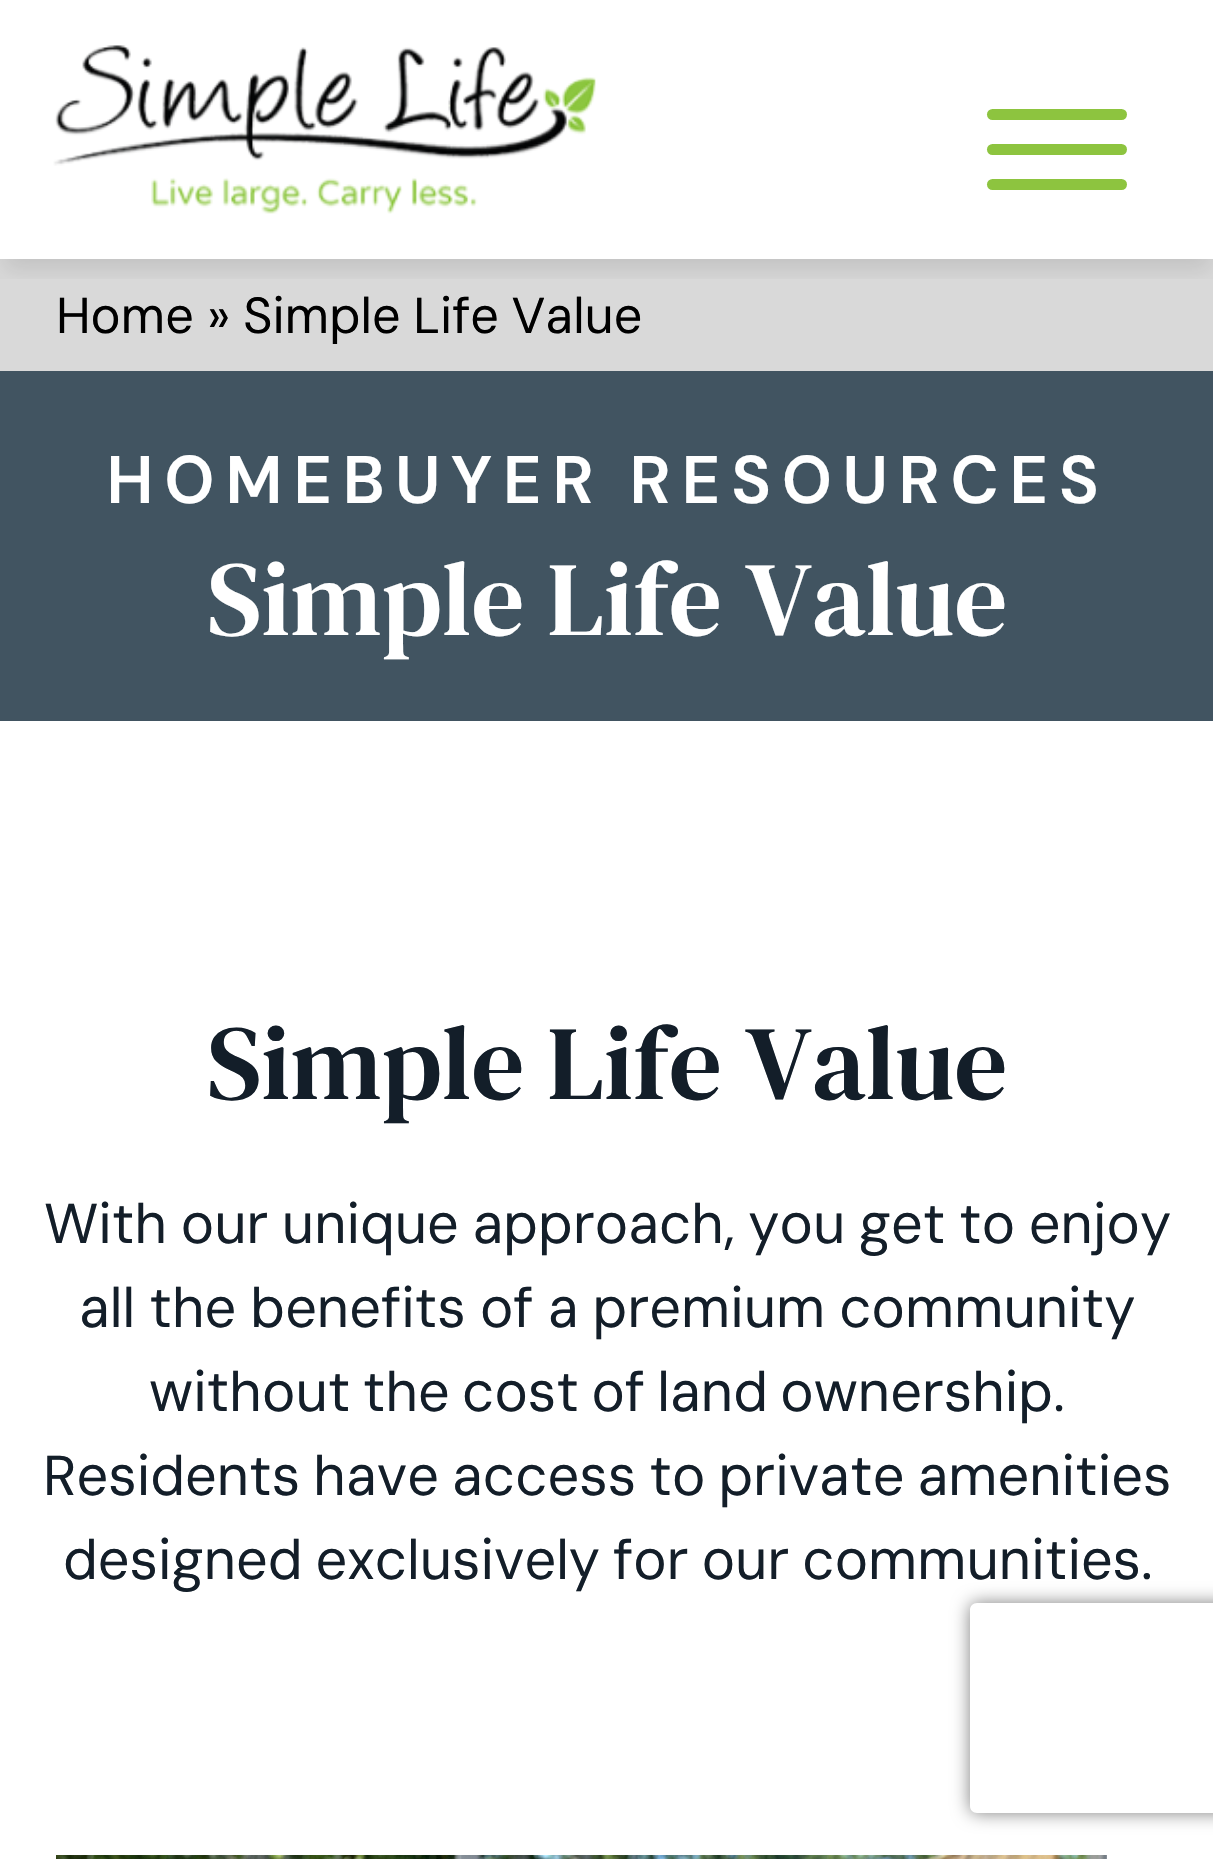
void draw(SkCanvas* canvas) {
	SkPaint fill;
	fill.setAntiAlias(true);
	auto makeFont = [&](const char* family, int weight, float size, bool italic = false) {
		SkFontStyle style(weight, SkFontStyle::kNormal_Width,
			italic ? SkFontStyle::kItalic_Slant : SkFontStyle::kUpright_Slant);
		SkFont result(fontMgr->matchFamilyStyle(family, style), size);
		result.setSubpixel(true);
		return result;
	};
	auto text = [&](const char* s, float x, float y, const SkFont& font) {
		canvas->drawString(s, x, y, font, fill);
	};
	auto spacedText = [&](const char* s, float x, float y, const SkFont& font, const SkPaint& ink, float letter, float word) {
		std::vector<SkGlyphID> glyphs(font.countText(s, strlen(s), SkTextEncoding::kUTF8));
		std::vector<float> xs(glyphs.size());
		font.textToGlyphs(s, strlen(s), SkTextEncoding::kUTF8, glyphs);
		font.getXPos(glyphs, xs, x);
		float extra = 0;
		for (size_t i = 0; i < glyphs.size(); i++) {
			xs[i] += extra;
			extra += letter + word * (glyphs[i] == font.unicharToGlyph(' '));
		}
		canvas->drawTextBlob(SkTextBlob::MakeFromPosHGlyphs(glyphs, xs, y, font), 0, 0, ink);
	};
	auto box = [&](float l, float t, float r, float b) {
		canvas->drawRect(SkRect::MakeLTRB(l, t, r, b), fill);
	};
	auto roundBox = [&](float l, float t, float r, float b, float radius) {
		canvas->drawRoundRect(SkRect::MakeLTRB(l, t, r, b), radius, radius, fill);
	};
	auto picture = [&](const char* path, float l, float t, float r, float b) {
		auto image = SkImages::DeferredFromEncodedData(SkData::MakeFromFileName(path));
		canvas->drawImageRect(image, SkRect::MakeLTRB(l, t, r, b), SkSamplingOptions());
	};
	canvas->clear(0xFFFFFFFF);
	fill.setColor(0xFFD9D9D9);
	box(0, 259, 1213, 371);
	canvas->save();
	canvas->clipRect(SkRect::MakeLTRB(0, 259, 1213, 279));
	fill.setColor(0x1A000000);
	fill.setMaskFilter(SkMaskFilter::MakeBlur(kNormal_SkBlurStyle, 10.5f));
	canvas->drawRect(SkRect::MakeLTRB(4, 18, 1211, 270), fill);
	fill.setMaskFilter(nullptr);
	canvas->restore();
	picture("image0.png", 53, 45, 596, 214);
	fill.setColor(0xFF8DC43F);
	roundBox(987, 179, 1127, 190, 5.5f);
	roundBox(987, 109, 1127, 120, 5.5f);
	roundBox(987, 144, 1127, 155, 5.5f);
	fill.setColor(0xFF415461);
	box(0, 371, 1213, 721);
	picture("image1.png", 56, 1855, 1107, 1859);
	canvas->save();
	canvas->clipPath(SkPathBuilder(SkPathFillType::kEvenOdd).moveTo(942, 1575).lineTo(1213, 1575).lineTo(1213, 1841).lineTo(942, 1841).close().moveTo(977, 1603).lineTo(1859, 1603).cubicTo(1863, 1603, 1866, 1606, 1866, 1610).lineTo(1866, 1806).cubicTo(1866, 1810, 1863, 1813, 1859, 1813).lineTo(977, 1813).cubicTo(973, 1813, 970, 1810, 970, 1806).lineTo(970, 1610).cubicTo(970, 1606, 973, 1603, 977, 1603).close().detach(), true);
	fill.setColor(0xFF808080);
	fill.setMaskFilter(SkMaskFilter::MakeBlur(kNormal_SkBlurStyle, 9));
	canvas->drawRoundRect(SkRect::MakeLTRB(970, 1603, 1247, 1813), 7, 7, fill);
	fill.setMaskFilter(nullptr);
	canvas->restore();
	auto font1 = makeFont("DM Sans", 400, 50.5f);
	fill.setColor(0xFF000000);
	text("Home »", 56, 333, font1);
	spacedText("Simple Life Value", 243, 333, font1, fill, 0, -1);
	auto font2 = makeFont("DM Sans", 600, 67.25f);
	fill.setColor(0xFFFFFFFF);
	spacedText("HOMEBUYER RESOURCES", 106, 503, font2, fill, 10.1f, -2);
	auto font3 = makeFont("DM Serif Text", 400, 105.25f);
	text("Simple Life Value", 207, 635, font3);
	fill.setColor(0xFF131E29);
	text("Simple Life Value", 207, 1099, font3);
	auto font4 = makeFont("DM Sans", 400, 56);
	spacedText("With our unique approach, you get to enjoy", 44, 1243, font4, fill, 0, -1.5f);
	spacedText("all the benefits of a premium community", 79, 1327, font4, fill, 0, -1);
	spacedText("without the cost of land ownership.", 149, 1411, font4, fill, 0, -2.75f);
	spacedText("Residents have access to private amenities", 43, 1495, font4, fill, 0, -2);
	spacedText("designed exclusively for our communities.", 63, 1579, font4, fill, 0, -2);
}
